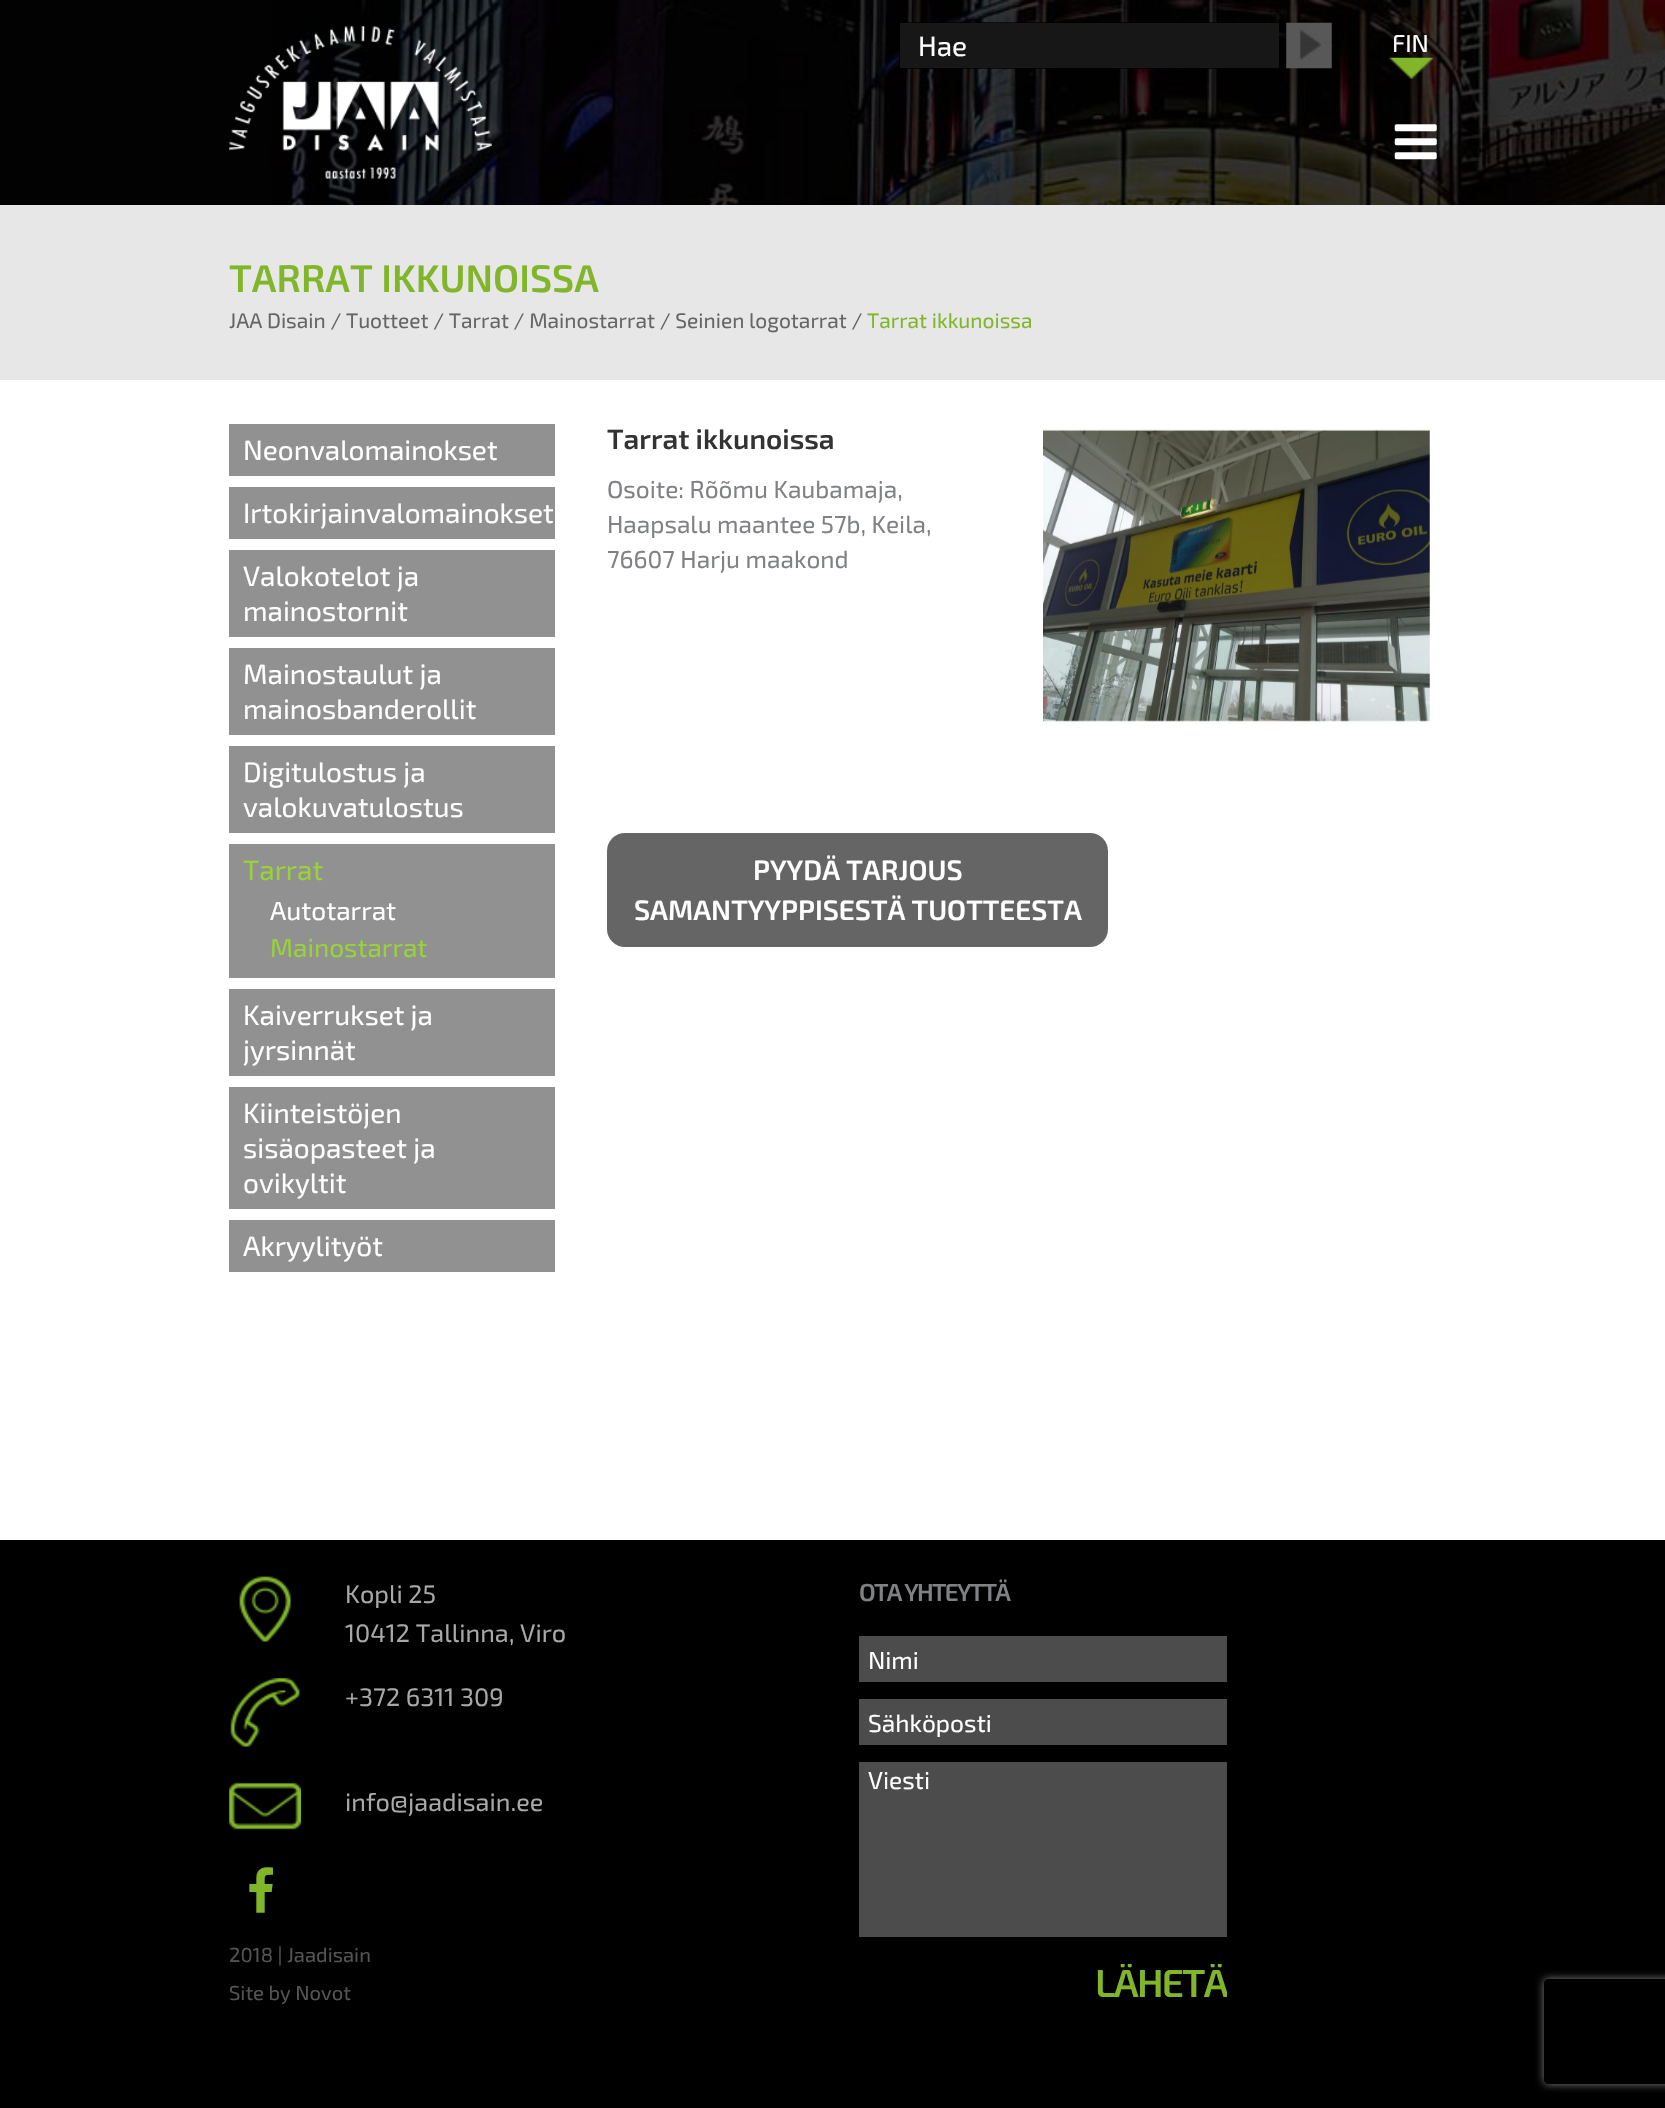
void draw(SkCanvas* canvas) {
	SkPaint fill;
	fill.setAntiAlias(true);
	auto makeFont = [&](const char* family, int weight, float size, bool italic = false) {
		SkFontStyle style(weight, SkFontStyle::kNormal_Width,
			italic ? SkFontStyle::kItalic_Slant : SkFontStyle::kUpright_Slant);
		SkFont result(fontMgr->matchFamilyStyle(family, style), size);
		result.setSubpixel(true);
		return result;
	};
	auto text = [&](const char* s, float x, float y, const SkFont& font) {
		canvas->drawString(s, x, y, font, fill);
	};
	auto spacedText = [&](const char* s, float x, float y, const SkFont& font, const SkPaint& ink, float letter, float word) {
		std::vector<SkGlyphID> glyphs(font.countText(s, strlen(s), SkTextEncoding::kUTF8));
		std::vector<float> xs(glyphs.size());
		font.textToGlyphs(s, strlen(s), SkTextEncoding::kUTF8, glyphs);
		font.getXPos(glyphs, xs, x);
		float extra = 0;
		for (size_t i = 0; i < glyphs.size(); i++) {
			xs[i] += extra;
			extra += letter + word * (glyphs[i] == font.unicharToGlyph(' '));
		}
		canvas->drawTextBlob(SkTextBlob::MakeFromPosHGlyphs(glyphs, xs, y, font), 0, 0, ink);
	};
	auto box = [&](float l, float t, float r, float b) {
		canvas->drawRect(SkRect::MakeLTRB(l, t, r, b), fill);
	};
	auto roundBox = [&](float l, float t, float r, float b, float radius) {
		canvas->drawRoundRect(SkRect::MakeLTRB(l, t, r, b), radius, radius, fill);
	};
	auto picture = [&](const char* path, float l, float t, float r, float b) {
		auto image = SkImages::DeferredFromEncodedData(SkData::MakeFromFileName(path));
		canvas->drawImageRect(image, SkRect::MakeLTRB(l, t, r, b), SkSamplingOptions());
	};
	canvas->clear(0xFFFFFFFF);
	picture("image0.png", 0, 0, 1665, 205);
	fill.setColor(0xB3000000);
	box(273, 0, 1665, 205);
	picture("image1.png", 229, 26, 492, 179);
	fill.setColor(0xFF4C4C4C);
	box(900, 23, 1279, 68);
	fill.setColor(0xB3000000);
	box(899, 22, 1279, 69);
	picture("image2.png", 1286, 22, 1332, 69);
	picture("image3.png", 1389, 57, 1434, 79);
	picture("image4.png", 1394, 124, 1437, 160);
	fill.setColor(0xFFE7E7E7);
	box(0, 205, 1665, 380);
	fill.setColor(0xFF919191);
	box(229, 424, 555, 476);
	box(229, 487, 555, 539);
	box(229, 550, 555, 637);
	box(229, 648, 555, 735);
	box(229, 746, 555, 833);
	box(229, 844, 555, 978);
	box(229, 989, 555, 1076);
	box(229, 1087, 555, 1209);
	box(229, 1220, 555, 1272);
	picture("image5.png", 1043, 429, 1430, 722);
	fill.setColor(0xFF656565);
	roundBox(607, 833, 1108, 947, 18);
	fill.setColor(0xFF000000);
	box(0, 1540, 1665, 2108);
	picture("image6.png", 239, 1576, 291, 1642);
	picture("image7.png", 230, 1678, 300, 1747);
	picture("image8.png", 229, 1782, 301, 1830);
	picture("image9.png", 249, 1867, 273, 1913);
	fill.setColor(0xFF4C4C4C);
	box(859, 1636, 1227, 1682);
	box(859, 1699, 1227, 1745);
	box(859, 1762, 1227, 1937);
	canvas->save();
	canvas->clipPath(SkPathBuilder(SkPathFillType::kEvenOdd).moveTo(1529, 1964).lineTo(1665, 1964).lineTo(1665, 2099).lineTo(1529, 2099).close().moveTo(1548, 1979).lineTo(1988, 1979).cubicTo(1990, 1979, 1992, 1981, 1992, 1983).lineTo(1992, 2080).cubicTo(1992, 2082, 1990, 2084, 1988, 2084).lineTo(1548, 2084).cubicTo(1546, 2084, 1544, 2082, 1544, 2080).lineTo(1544, 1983).cubicTo(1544, 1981, 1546, 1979, 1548, 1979).close().detach(), true);
	fill.setColor(0xFF808080);
	fill.setMaskFilter(SkMaskFilter::MakeBlur(kNormal_SkBlurStyle, 4.5f));
	canvas->drawRoundRect(SkRect::MakeLTRB(1544, 1979, 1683, 2084), 4, 4, fill);
	fill.setMaskFilter(nullptr);
	canvas->restore();
	auto font1 = makeFont("Exo 2", 400, 28);
	fill.setColor(0xFFFFFFFF);
	text("Hae", 918, 56, font1);
	auto font2 = makeFont("Exo 2", 400, 24.5f);
	text("FIN", 1392, 52, font2);
	auto font3 = makeFont("Exo 2", 600, 38.5f);
	fill.setColor(0xFF81B62B);
	text("TARRAT IKKUNOISSA", 229, 292, font3);
	auto font4 = makeFont("Exo 2", 400, 21);
	fill.setColor(0xFF656565);
	text("JAA Disain / Tuotteet / Tarrat / Mainostarrat / Seinien logotarrat /", 229, 328, font4);
	fill.setColor(0xFF81B62B);
	text("Tarrat ikkunoissa", 867, 328, font4);
	fill.setColor(0xFFFFFFFF);
	text("Neonvalomainokset", 243, 460, font1);
	text("Irtokirjainvalomainokset", 243, 523, font1);
	text("Valokotelot ja", 243, 586, font1);
	text("mainostornit", 243, 621, font1);
	text("Mainostaulut ja", 243, 684, font1);
	text("mainosbanderollit", 243, 719, font1);
	text("Digitulostus ja", 243, 782, font1);
	text("valokuvatulostus", 243, 817, font1);
	fill.setColor(0xFF98D337);
	text("Tarrat", 243, 880, font1);
	auto font5 = makeFont("Exo 2", 400, 26.25f);
	fill.setColor(0xFFFFFFFF);
	text("Autotarrat", 270, 920, font5);
	fill.setColor(0xFF98D337);
	text("Mainostarrat", 270, 957, font5);
	fill.setColor(0xFFFFFFFF);
	text("Kaiverrukset ja", 243, 1025, font1);
	text("jyrsinnät", 243, 1060, font1);
	text("Kiinteistöjen", 243, 1123, font1);
	text("sisäopasteet ja", 243, 1158, font1);
	text("ovikyltit", 243, 1193, font1);
	text("Akryylityöt", 243, 1256, font1);
	auto font6 = makeFont("Exo 2", 600, 28);
	fill.setColor(0xFF333333);
	text("Tarrat ikkunoissa", 607, 449, font6);
	fill.setColor(0xFF808184);
	text("Osoite: Rõõmu Kaubamaja,", 607, 498, font2);
	text("Haapsalu maantee 57b, Keila,", 607, 533, font2);
	text("76607 Harju maakond", 607, 568, font2);
	fill.setColor(0xFFFFFFFF);
	text("PYYDÄ TARJOUS", 753, 880, font6);
	text("SAMANTYYPPISESTÄ TUOTTEESTA", 634, 920, font6);
	auto font7 = makeFont("Exo 2", 400, 25.25f);
	fill.setColor(0xFFA8A8A9);
	text("Kopli 25", 345, 1603, font7);
	text("10412 Tallinna, Viro", 345, 1642, font7);
	text("+372 6311 309", 345, 1706, font7);
	text("info@jaadisain.ee", 345, 1811, font7);
	auto font8 = makeFont("Exo 2", 400, 20.25f);
	fill.setColor(0xFF545455);
	text("2018 | Jaadisain", 229, 1962, font8);
	text("Site by Novot", 229, 2000, font8);
	auto font9 = makeFont("Exo 2", 600, 24.5f);
	fill.setColor(0xFF808184);
	spacedText("OTA YHTEYTTÄ", 859, 1601, font9, fill, -1.75f, 0);
	fill.setColor(0xFFFFFFFF);
	text("Nimi", 868, 1669, font2);
	text("Sähköposti", 868, 1732, font2);
	text("Viesti", 868, 1789, font2);
	canvas->save();
	canvas->clipRect(SkRect::MakeLTRB(1096, 1964, 1227, 1999));
	auto font10 = makeFont("Exo 2", 600, 39);
	fill.setColor(0xFF81B62B);
	spacedText("LÄHETÄ", 1095, 1997, font10, fill, -1.75f, 0);
	canvas->restore();
}
